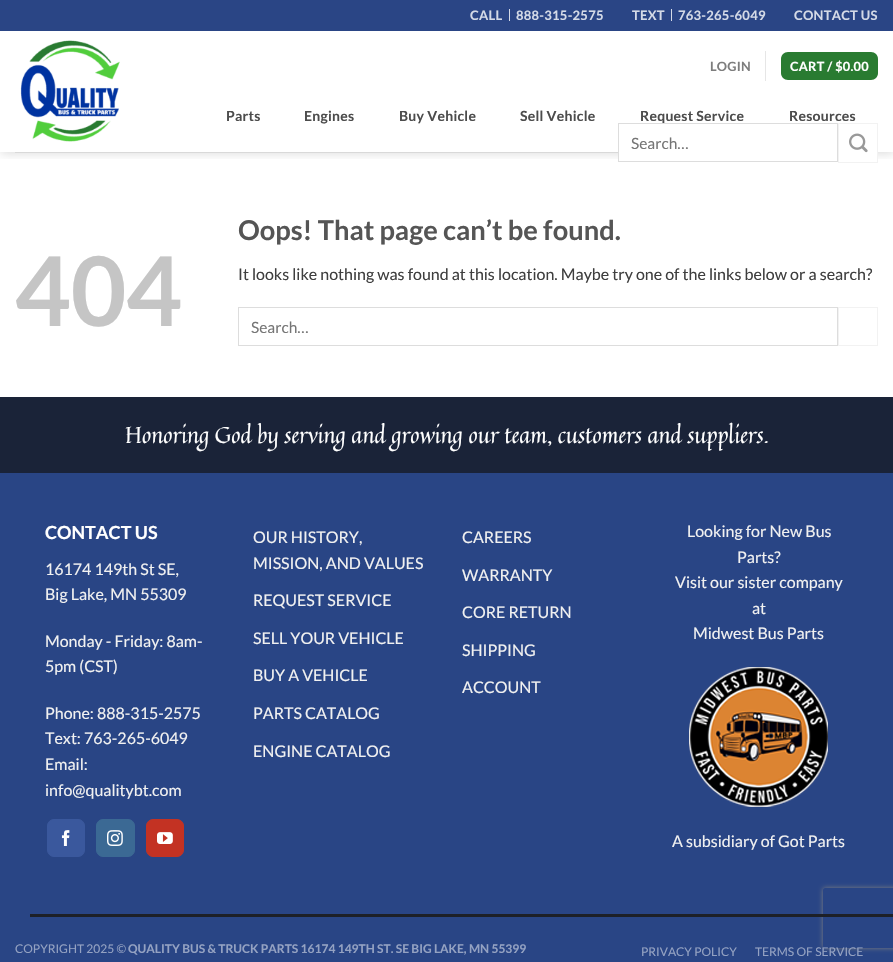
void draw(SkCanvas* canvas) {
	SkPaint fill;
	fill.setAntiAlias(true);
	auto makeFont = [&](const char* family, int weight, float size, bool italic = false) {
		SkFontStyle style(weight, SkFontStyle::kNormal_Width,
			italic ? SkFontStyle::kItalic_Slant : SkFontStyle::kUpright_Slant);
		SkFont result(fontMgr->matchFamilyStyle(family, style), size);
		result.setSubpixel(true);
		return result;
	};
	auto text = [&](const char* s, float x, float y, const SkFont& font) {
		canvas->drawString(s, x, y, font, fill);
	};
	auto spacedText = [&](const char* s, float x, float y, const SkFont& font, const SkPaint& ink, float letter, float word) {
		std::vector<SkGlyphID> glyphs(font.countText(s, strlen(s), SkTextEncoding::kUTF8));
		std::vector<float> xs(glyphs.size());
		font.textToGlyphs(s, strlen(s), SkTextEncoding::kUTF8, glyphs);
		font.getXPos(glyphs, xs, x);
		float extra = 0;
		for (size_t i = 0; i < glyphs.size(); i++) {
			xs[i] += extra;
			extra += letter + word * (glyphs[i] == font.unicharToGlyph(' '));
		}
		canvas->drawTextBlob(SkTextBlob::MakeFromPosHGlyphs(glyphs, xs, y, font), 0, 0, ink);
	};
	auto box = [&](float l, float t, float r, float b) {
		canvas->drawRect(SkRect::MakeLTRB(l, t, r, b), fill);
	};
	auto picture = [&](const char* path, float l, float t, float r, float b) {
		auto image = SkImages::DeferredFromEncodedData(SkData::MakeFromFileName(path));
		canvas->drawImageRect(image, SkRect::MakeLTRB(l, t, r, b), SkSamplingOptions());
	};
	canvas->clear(0xFFFFFFFF);
	canvas->save();
	canvas->clipRect(SkRect::MakeLTRB(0, 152, 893, 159));
	fill.setColor(0x26000000);
	fill.setMaskFilter(SkMaskFilter::MakeBlur(kNormal_SkBlurStyle, 5));
	canvas->drawRect(SkRect::MakeLTRB(1, 1, 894, 153), fill);
	fill.setMaskFilter(nullptr);
	canvas->restore();
	fill.setColor(0xFF2A4585);
	box(0, 0, 893, 31);
	fill.setColor(0xFFD4DAE7);
	box(509, 9, 510, 21);
	box(671, 9, 672, 21);
	picture("image0.png", 20, 40, 120, 142);
	fill.setColor(0xFFE6E6E6);
	box(765, 51, 766, 81);
	fill.setColor(0xFF297B31);
	canvas->drawPath(SkPathBuilder().moveTo(788, 52).lineTo(835, 52).lineTo(835, 80).lineTo(788, 80).cubicTo(784, 80, 781, 77, 781, 73).lineTo(781, 59).cubicTo(781, 55, 784, 52, 788, 52).close().detach(), fill);
	box(835, 52, 843, 80);
	canvas->drawPath(SkPathBuilder().moveTo(843, 52).lineTo(871, 52).cubicTo(875, 52, 878, 55, 878, 59).lineTo(878, 73).cubicTo(878, 77, 875, 80, 871, 80).lineTo(843, 80).close().detach(), fill);
	fill.setColor(0xFFFFFFFF);
	box(619, 152, 837, 160);
	box(839, 152, 877, 160);
	fill.setStyle(SkPaint::kStroke_Style);
	fill.setStrokeWidth(1);
	fill.setColor(0xFFF2F2F2);
	canvas->drawRect(SkRect::MakeLTRB(838.5f, 123.5f, 877.5f, 162.5f), fill);
	picture("image1.png", 849, 133, 868, 153);
	fill.setStyle(SkPaint::kFill_Style);
	fill.setColor(0xFFD9D9D9);
	box(15, 152, 618, 153);
	fill.setStyle(SkPaint::kStroke_Style);
	fill.setColor(0xFFDDDDDD);
	canvas->drawRect(SkRect::MakeLTRB(238.5f, 307.5f, 837.5f, 345.5f), fill);
	fill.setColor(0xFFF2F2F2);
	canvas->drawRect(SkRect::MakeLTRB(838.5f, 307.5f, 877.5f, 345.5f), fill);
	fill.setStyle(SkPaint::kFill_Style);
	fill.setColor(0xFF1A2338);
	box(0, 397, 893, 473);
	fill.setColor(0xFF294585);
	box(0, 473, 893, 962);
	fill.setColor(0xFF3A589D);
	canvas->drawRoundRect(SkRect::MakeLTRB(47.5f, 819.5f, 84.5f, 856.5f), 6.5f, 6.5f, fill);
	fill.setStyle(SkPaint::kStroke_Style);
	canvas->drawRoundRect(SkRect::MakeLTRB(47.5f, 819.5f, 84.5f, 856.5f), 6.5f, 6.5f, fill);
	picture("image2.png", 61, 830, 70, 846);
	fill.setStyle(SkPaint::kFill_Style);
	fill.setColor(0xFF3B6994);
	canvas->drawRoundRect(SkRect::MakeLTRB(96.5f, 819.5f, 134.5f, 856.5f), 6.5f, 6.5f, fill);
	fill.setStyle(SkPaint::kStroke_Style);
	canvas->drawRoundRect(SkRect::MakeLTRB(96.5f, 819.5f, 134.5f, 856.5f), 6.5f, 6.5f, fill);
	picture("image3.png", 107, 830, 123, 846);
	fill.setStyle(SkPaint::kFill_Style);
	fill.setColor(0xFFC33223);
	canvas->drawRoundRect(SkRect::MakeLTRB(146.5f, 819.5f, 183.5f, 856.5f), 6.5f, 6.5f, fill);
	fill.setStyle(SkPaint::kStroke_Style);
	canvas->drawRoundRect(SkRect::MakeLTRB(146.5f, 819.5f, 183.5f, 856.5f), 6.5f, 6.5f, fill);
	picture("image4.png", 157, 832, 173, 844);
	picture("image5.png", 689, 667, 828, 807);
	canvas->save();
	canvas->clipPath(SkPathBuilder(SkPathFillType::kEvenOdd).moveTo(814, 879).lineTo(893, 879).lineTo(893, 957).lineTo(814, 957).close().moveTo(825, 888).lineTo(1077, 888).cubicTo(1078, 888, 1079, 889, 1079, 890).lineTo(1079, 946).cubicTo(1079, 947, 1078, 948, 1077, 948).lineTo(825, 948).cubicTo(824, 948, 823, 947, 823, 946).lineTo(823, 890).cubicTo(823, 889, 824, 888, 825, 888).close().detach(), true);
	fill.setStyle(SkPaint::kFill_Style);
	fill.setColor(0xFF808080);
	fill.setMaskFilter(SkMaskFilter::MakeBlur(kNormal_SkBlurStyle, 2.5f));
	canvas->drawRoundRect(SkRect::MakeLTRB(823, 888, 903, 948), 2, 2, fill);
	fill.setMaskFilter(nullptr);
	canvas->restore();
	fill.setColor(0xFF1D2027);
	box(30, 914, 893, 917);
	auto font1 = makeFont("Lato", 700, 13);
	fill.setColor(0xFFD4DAE7);
	spacedText("CALL", 470, 20, font1, fill, 0.25f, 0);
	spacedText("888-315-2575", 516, 20, font1, fill, 0.25f, 0);
	spacedText("TEXT", 632, 20, font1, fill, 0.25f, 0);
	spacedText("763-265-6049", 678, 20, font1, fill, 0.25f, 0);
	spacedText("CONTACT US", 794, 20, font1, fill, 0.25f, 0);
	auto font2 = makeFont("Lato", 700, 12.75f);
	fill.setColor(0xFF7D7D7D);
	spacedText("LOGIN", 710, 71, font2, fill, 0.25f, 0);
	fill.setColor(0xFFFFFFFF);
	spacedText("CART / $0.00", 790, 71, font2, fill, 0.25f, 0);
	auto font3 = makeFont("Lato", 700, 14);
	fill.setColor(0xFF4C4C4C);
	spacedText("Parts", 226, 121, font3, fill, 0.25f, 0);
	spacedText("Engines", 304, 121, font3, fill, 0.25f, 0);
	spacedText("Buy Vehicle", 399, 121, font3, fill, 0.25f, 0);
	spacedText("Sell Vehicle", 520, 121, font3, fill, 0.25f, 0);
	spacedText("Request Service", 640, 121, font3, fill, 0.25f, 0);
	spacedText("Resources", 789, 121, font3, fill, 0.25f, 0);
	fill.setStyle(SkPaint::kStroke_Style);
	fill.setColor(0xFFDDDDDD);
	canvas->drawRect(SkRect::MakeLTRB(618.5f, 123.5f, 837.5f, 161.5f), fill);
	auto font4 = makeFont("Lato", 400, 15.5f);
	fill.setStyle(SkPaint::kFill_Style);
	fill.setColor(0xFF757575);
	text("Search…", 631, 149, font4);
	auto font5 = makeFont("Lato", 700, 96);
	fill.setColor(0xFFC5C5C5);
	text("404", 15, 326, font5);
	auto font6 = makeFont("Lato", 700, 27.25f);
	fill.setColor(0xFF555555);
	text("Oops! That page can’t be found.", 238, 240, font6);
	auto font7 = makeFont("Lato", 400, 16);
	fill.setColor(0xFF3F3F3F);
	text("It looks like nothing was found at this location. Maybe try one of the links below or a search?", 238, 280, font7);
	fill.setColor(0xFF757575);
	text("Search…", 251, 333, font4);
	auto font8 = makeFont("Quintessential", 400, 22.4f);
	fill.setColor(0xFFFFFFFF);
	text("Honoring God by serving and growing our team, customers and suppliers.", 125, 443, font8);
	auto font9 = makeFont("Lato", 700, 18);
	text("CONTACT US", 45, 539, font9);
	fill.setColor(0xFFF1F1F1);
	text("16174 149th St SE,", 45, 575, font7);
	text("Big Lake, MN 55309", 45, 600, font7);
	text("Monday - Friday: 8am-", 45, 647, font7);
	text("5pm (CST)", 45, 672, font7);
	text("Phone: 888-315-2575", 45, 719, font7);
	text("Text: 763-265-6049", 45, 744, font7);
	text("Email:", 45, 770, font7);
	text("info@qualitybt.com", 45, 796, font7);
	text("OUR HISTORY,", 253, 543, font7);
	text("MISSION, AND VALUES", 253, 569, font7);
	text("REQUEST SERVICE", 253, 606, font7);
	text("SELL YOUR VEHICLE", 253, 644, font7);
	text("BUY A VEHICLE", 253, 681, font7);
	text("PARTS CATALOG", 253, 719, font7);
	text("ENGINE CATALOG", 253, 757, font7);
	text("CAREERS", 462, 543, font7);
	text("WARRANTY", 462, 581, font7);
	text("CORE RETURN", 462, 618, font7);
	text("SHIPPING", 462, 656, font7);
	text("ACCOUNT", 462, 693, font7);
	text("Looking for New Bus", 687, 537, font7);
	text("Parts?", 737, 563, font7);
	text("Visit our sister company", 675, 588, font7);
	text("at", 752, 614, font7);
	text("Midwest Bus Parts", 693, 639, font7);
	text("A subsidiary of Got Parts", 672, 847, font7);
	auto font10 = makeFont("Lato", 400, 12);
	fill.setColor(0xFF94A2C2);
	text("COPYRIGHT 2025 ©", 15, 953, font10);
	auto font11 = makeFont("Lato", 700, 12);
	text("QUALITY BUS & TRUCK PARTS 16174 149TH ST. SE BIG LAKE, MN 55399", 128, 953, font11);
	text("PRIVACY POLICY", 641, 956, font10);
	text("TERMS OF SERVICE", 755, 956, font10);
}
